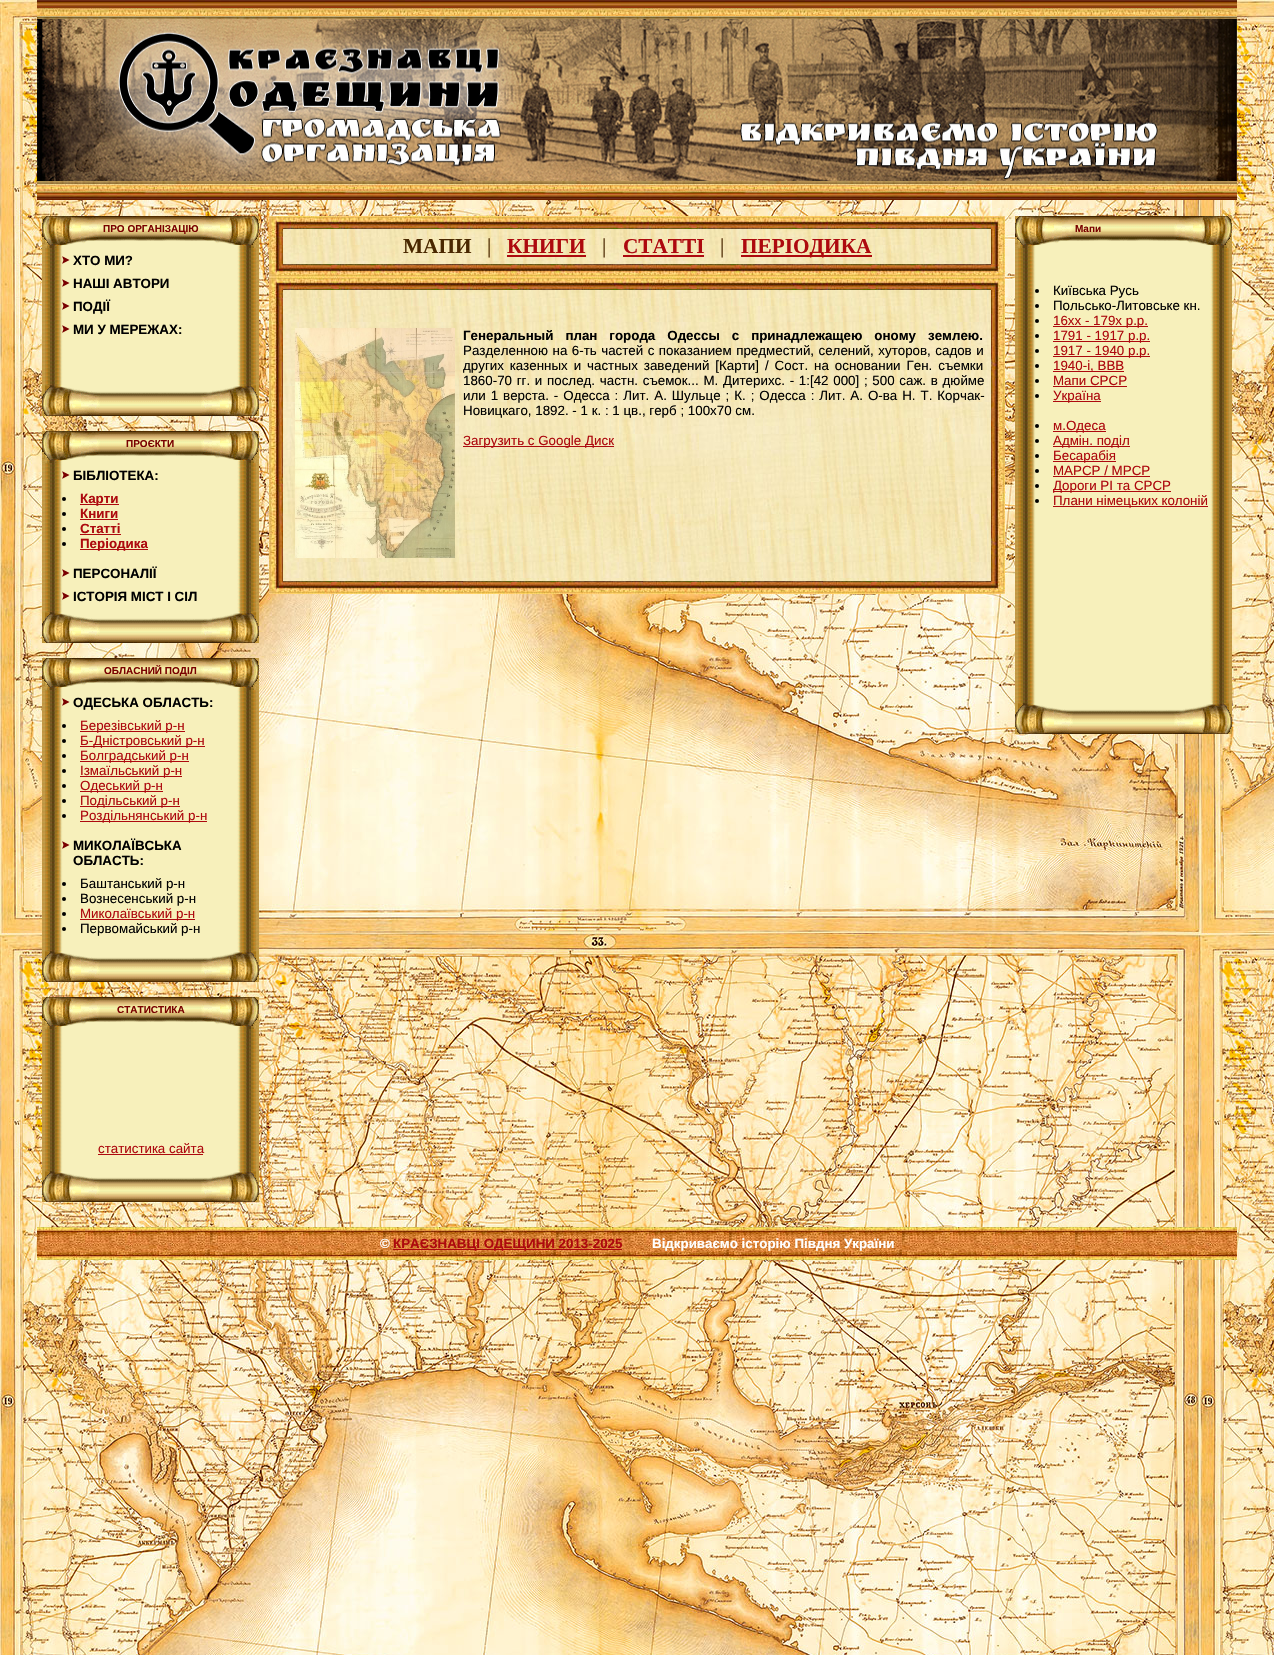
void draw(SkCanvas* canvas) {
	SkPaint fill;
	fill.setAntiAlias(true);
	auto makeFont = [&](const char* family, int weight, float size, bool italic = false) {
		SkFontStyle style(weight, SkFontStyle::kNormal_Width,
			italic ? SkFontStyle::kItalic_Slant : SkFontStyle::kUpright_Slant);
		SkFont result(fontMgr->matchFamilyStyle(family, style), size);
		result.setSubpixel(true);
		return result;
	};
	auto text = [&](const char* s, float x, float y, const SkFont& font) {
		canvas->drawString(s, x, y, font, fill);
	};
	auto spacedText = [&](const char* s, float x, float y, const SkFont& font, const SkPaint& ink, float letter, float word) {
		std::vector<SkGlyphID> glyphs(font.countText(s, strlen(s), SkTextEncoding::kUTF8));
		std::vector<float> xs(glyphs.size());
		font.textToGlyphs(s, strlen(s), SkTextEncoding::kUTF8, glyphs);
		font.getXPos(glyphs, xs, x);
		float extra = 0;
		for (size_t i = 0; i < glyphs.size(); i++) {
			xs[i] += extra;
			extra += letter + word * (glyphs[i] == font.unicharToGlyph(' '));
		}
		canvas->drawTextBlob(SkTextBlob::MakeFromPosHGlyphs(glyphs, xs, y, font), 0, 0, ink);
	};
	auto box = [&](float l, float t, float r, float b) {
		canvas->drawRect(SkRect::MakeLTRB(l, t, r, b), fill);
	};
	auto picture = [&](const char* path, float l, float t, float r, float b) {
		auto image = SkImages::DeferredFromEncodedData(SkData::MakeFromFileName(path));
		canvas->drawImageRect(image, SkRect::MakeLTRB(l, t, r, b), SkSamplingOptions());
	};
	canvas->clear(0xFFFFFFFF);
	picture("image0.png", 0, 0, 1274, 1655);
	picture("image1.png", 37, 0, 1237, 200);
	picture("image2.png", 37, 19, 1237, 181);
	picture("image3.png", 42, 248, 259, 385);
	picture("image4.png", 42, 216, 259, 248);
	picture("image5.png", 62, 256, 70, 264);
	picture("image6.png", 62, 279, 70, 287);
	picture("image7.png", 62, 302, 70, 310);
	picture("image8.png", 62, 325, 70, 333);
	picture("image9.png", 42, 385, 259, 416);
	picture("image10.png", 42, 463, 259, 612);
	picture("image4.png", 42, 431, 259, 463);
	picture("image5.png", 62, 471, 70, 479);
	fill.setColor(0xFF000000);
	canvas->drawCircle(64, 499, 2, fill);
	fill.setColor(0xFFAD090E);
	box(80, 504, 119, 505);
	fill.setColor(0xFF000000);
	canvas->drawCircle(64, 514, 2, fill);
	fill.setColor(0xFFAD090E);
	box(80, 519, 118, 520);
	fill.setColor(0xFF000000);
	canvas->drawCircle(64, 529, 2, fill);
	fill.setColor(0xFFAD090E);
	box(80, 534, 121, 535);
	fill.setColor(0xFF000000);
	canvas->drawCircle(64, 544, 2, fill);
	fill.setColor(0xFFAD090E);
	box(80, 549, 148, 550);
	picture("image7.png", 62, 569, 70, 577);
	picture("image8.png", 62, 592, 70, 600);
	picture("image9.png", 42, 612, 259, 643);
	picture("image11.png", 42, 690, 259, 951);
	picture("image4.png", 42, 658, 259, 690);
	picture("image5.png", 62, 698, 70, 706);
	fill.setColor(0xFF000000);
	canvas->drawCircle(64, 726, 2, fill);
	fill.setColor(0xFFAD090E);
	box(80, 731, 185, 732);
	fill.setColor(0xFF000000);
	canvas->drawCircle(64, 741, 2, fill);
	fill.setColor(0xFFAD090E);
	box(80, 746, 205, 747);
	fill.setColor(0xFF000000);
	canvas->drawCircle(64, 756, 2, fill);
	fill.setColor(0xFFAD090E);
	box(80, 761, 189, 762);
	fill.setColor(0xFF000000);
	canvas->drawCircle(64, 771, 2, fill);
	fill.setColor(0xFFAD090E);
	box(80, 776, 182, 777);
	fill.setColor(0xFF000000);
	canvas->drawCircle(64, 786, 2, fill);
	fill.setColor(0xFFAD090E);
	box(80, 791, 163, 792);
	fill.setColor(0xFF000000);
	canvas->drawCircle(64, 801, 2, fill);
	fill.setColor(0xFFAD090E);
	box(80, 806, 180, 807);
	fill.setColor(0xFF000000);
	canvas->drawCircle(64, 816, 2, fill);
	fill.setColor(0xFFAD090E);
	box(80, 821, 207, 822);
	picture("image6.png", 62, 841, 70, 849);
	fill.setColor(0xFF000000);
	canvas->drawCircle(64, 884, 2, fill);
	canvas->drawCircle(64, 899, 2, fill);
	canvas->drawCircle(64, 914, 2, fill);
	fill.setColor(0xFFAD090E);
	box(80, 919, 195, 920);
	fill.setColor(0xFF000000);
	canvas->drawCircle(64, 929, 2, fill);
	picture("image9.png", 42, 951, 259, 982);
	picture("image12.png", 42, 1029, 259, 1171);
	picture("image4.png", 42, 997, 259, 1029);
	fill.setColor(0xFFAD090E);
	box(98, 1154, 203, 1155);
	picture("image9.png", 42, 1171, 259, 1202);
	picture("image13.png", 269, 216, 283, 229);
	picture("image14.png", 283, 216, 991, 229);
	picture("image15.png", 991, 216, 1005, 229);
	picture("image16.png", 269, 229, 283, 264);
	picture("image17.png", 283, 229, 991, 264);
	box(507, 255, 586, 257);
	box(623, 255, 704, 257);
	box(741, 255, 872, 257);
	picture("image18.png", 991, 229, 1005, 264);
	picture("image19.png", 269, 264, 283, 277);
	picture("image20.png", 283, 264, 991, 277);
	picture("image21.png", 991, 264, 1005, 277);
	picture("image13.png", 269, 277, 283, 290);
	picture("image14.png", 283, 277, 991, 290);
	picture("image15.png", 991, 277, 1005, 290);
	picture("image22.png", 269, 290, 283, 581);
	picture("image23.png", 283, 290, 991, 581);
	picture("image24.png", 295, 328, 455, 558);
	box(463, 446, 614, 447);
	picture("image25.png", 991, 290, 1005, 581);
	picture("image19.png", 269, 581, 283, 594);
	picture("image20.png", 283, 581, 991, 594);
	picture("image21.png", 991, 581, 1005, 594);
	picture("image26.png", 1015, 248, 1232, 703);
	picture("image4.png", 1015, 216, 1232, 248);
	fill.setColor(0xFF000000);
	canvas->drawCircle(1037, 291, 2, fill);
	canvas->drawCircle(1037, 306, 2, fill);
	canvas->drawCircle(1037, 321, 2, fill);
	fill.setColor(0xFFAD090E);
	box(1053, 326, 1148, 327);
	fill.setColor(0xFF000000);
	canvas->drawCircle(1037, 336, 2, fill);
	fill.setColor(0xFFAD090E);
	box(1053, 341, 1150, 342);
	fill.setColor(0xFF000000);
	canvas->drawCircle(1037, 351, 2, fill);
	fill.setColor(0xFFAD090E);
	box(1053, 356, 1150, 357);
	fill.setColor(0xFF000000);
	canvas->drawCircle(1037, 366, 2, fill);
	fill.setColor(0xFFAD090E);
	box(1053, 371, 1124, 372);
	fill.setColor(0xFF000000);
	canvas->drawCircle(1037, 381, 2, fill);
	fill.setColor(0xFFAD090E);
	box(1053, 386, 1127, 387);
	fill.setColor(0xFF000000);
	canvas->drawCircle(1037, 396, 2, fill);
	fill.setColor(0xFFAD090E);
	box(1053, 401, 1101, 402);
	fill.setColor(0xFF000000);
	canvas->drawCircle(1037, 426, 2, fill);
	fill.setColor(0xFFAD090E);
	box(1053, 431, 1106, 432);
	fill.setColor(0xFF000000);
	canvas->drawCircle(1037, 441, 2, fill);
	fill.setColor(0xFFAD090E);
	box(1053, 446, 1130, 447);
	fill.setColor(0xFF000000);
	canvas->drawCircle(1037, 456, 2, fill);
	fill.setColor(0xFFAD090E);
	box(1053, 461, 1116, 462);
	fill.setColor(0xFF000000);
	canvas->drawCircle(1037, 471, 2, fill);
	fill.setColor(0xFFAD090E);
	box(1053, 476, 1150, 477);
	fill.setColor(0xFF000000);
	canvas->drawCircle(1037, 486, 2, fill);
	fill.setColor(0xFFAD090E);
	box(1053, 491, 1171, 492);
	fill.setColor(0xFF000000);
	canvas->drawCircle(1037, 501, 2, fill);
	fill.setColor(0xFFAD090E);
	box(1053, 506, 1208, 507);
	picture("image9.png", 1015, 703, 1232, 734);
	picture("image27.png", 37, 1227, 1237, 1260);
	box(393, 1249, 622, 1250);
	auto font1 = makeFont("Liberation Sans", 700, 10);
	fill.setColor(0xFF790000);
	text("ПРО ОРГАНІЗАЦІЮ", 103, 232, font1);
	auto font2 = makeFont("Liberation Sans", 700, 13.35f);
	fill.setColor(0xFF000000);
	text("ХТО МИ?", 73, 265, font2);
	text("НАШІ АВТОРИ", 73, 288, font2);
	text("ПОДІЇ", 73, 311, font2);
	text("МИ У МЕРЕЖАХ:", 73, 334, font2);
	fill.setColor(0xFF790000);
	text("ПРОЄКТИ", 126, 447, font1);
	fill.setColor(0xFF000000);
	text("БІБЛІОТЕКА:", 73, 480, font2);
	fill.setColor(0xFFAD090E);
	text("Карти", 80, 503, font2);
	text("Книги", 80, 518, font2);
	text("Статті", 80, 533, font2);
	text("Періодика", 80, 548, font2);
	fill.setColor(0xFF000000);
	text("ПЕРСОНАЛІЇ", 73, 578, font2);
	text("ІСТОРІЯ МІСТ І СІЛ", 73, 601, font2);
	fill.setColor(0xFF790000);
	text("ОБЛАСНИЙ ПОДІЛ", 104, 674, font1);
	fill.setColor(0xFF000000);
	text("ОДЕСЬКА ОБЛАСТЬ:", 73, 707, font2);
	auto font3 = makeFont("Liberation Sans", 400, 13.35f);
	fill.setColor(0xFFAD090E);
	text("Березівський р-н", 80, 730, font3);
	text("Б-Дністровський р-н", 80, 745, font3);
	text("Болградський р-н", 80, 760, font3);
	text("Ізмаїльський р-н", 80, 775, font3);
	text("Одеський р-н", 80, 790, font3);
	text("Подільський р-н", 80, 805, font3);
	text("Роздільнянський р-н", 80, 820, font3);
	fill.setColor(0xFF000000);
	text("МИКОЛАЇВСЬКА", 73, 850, font2);
	text("ОБЛАСТЬ:", 73, 865, font2);
	text("Баштанський р-н", 80, 888, font3);
	text("Вознесенський р-н", 80, 903, font3);
	fill.setColor(0xFFAD090E);
	text("Миколаївський р-н", 80, 918, font3);
	fill.setColor(0xFF000000);
	text("Первомайський р-н", 80, 933, font3);
	fill.setColor(0xFF790000);
	text("СТАТИСТИКА", 117, 1013, font1);
	fill.setColor(0xFFAD090E);
	text("статистика сайта", 98, 1153, font3);
	auto font4 = makeFont("Liberation Serif", 700, 21.25f);
	fill.setColor(0xFF492700);
	text("МАПИ", 403, 253, font4);
	auto font5 = makeFont("Liberation Serif", 400, 21.25f);
	text("|", 487, 253, font5);
	fill.setColor(0xFFAD090E);
	text("КНИГИ", 507, 253, font4);
	fill.setColor(0xFF492700);
	text("|", 602, 253, font5);
	fill.setColor(0xFFAD090E);
	text("СТАТТІ", 623, 253, font4);
	fill.setColor(0xFF492700);
	text("|", 720, 253, font5);
	fill.setColor(0xFFAD090E);
	text("ПЕРІОДИКА", 741, 253, font4);
	fill.setColor(0xFF000000);
	spacedText("Генеральный план города Одессы с принадлежащею оному землею.", 463, 340, font2, fill, 0, 8.25f);
	spacedText("Разделенною на 6-ть частей с показанием предместий, селений, хуторов, садов и", 463, 355, font3, fill, 0, 0.75f);
	spacedText("других казенных и частных заведений [Карти] / Сост. на основании Ген. съемки", 463, 370, font3, fill, 0, 2.25f);
	spacedText("1860-70 гг. и послед. частн. съемок... М. Дитерихс. - 1:[42 000] ; 500 саж. в дюйме", 463, 385, font3, fill, 0, 1);
	spacedText("или 1 верста. - Одесса : Лит. А. Шульце ; К. ; Одесса : Лит. А. О-ва Н. Т. Корчак-", 463, 400, font3, fill, 0, 1.25f);
	text("Новицкаго, 1892. - 1 к. : 1 цв., герб ; 100х70 см.", 463, 415, font3);
	fill.setColor(0xFFAD090E);
	text("Загрузить с Google Диск", 463, 445, font3);
	fill.setColor(0xFF790000);
	text("Мапи", 1075, 232, font1);
	fill.setColor(0xFF000000);
	text("Київська Русь", 1053, 295, font3);
	text("Польсько-Литовське кн.", 1053, 310, font3);
	fill.setColor(0xFFAD090E);
	text("16xx - 179x р.р.", 1053, 325, font3);
	text("1791 - 1917 р.р.", 1053, 340, font3);
	text("1917 - 1940 р.р.", 1053, 355, font3);
	text("1940-і, ВВВ", 1053, 370, font3);
	text("Мапи СРСР", 1053, 385, font3);
	text("Україна", 1053, 400, font3);
	text("м.Одеса", 1053, 430, font3);
	text("Адмін. поділ", 1053, 445, font3);
	text("Бесарабія", 1053, 460, font3);
	text("МАРСР / МРСР", 1053, 475, font3);
	text("Дороги РІ та СРСР", 1053, 490, font3);
	text("Плани німецьких колоній", 1053, 505, font3);
	fill.setColor(0xFFFFFFFF);
	text("©", 380, 1248, font2);
	fill.setColor(0xFFAD090E);
	text("КРАЄЗНАВЦІ ОДЕЩИНИ 2013-2025", 393, 1248, font2);
	fill.setColor(0xFFFFFFFF);
	text("Відкриваємо історію Півдня України", 652, 1248, font2);
}
